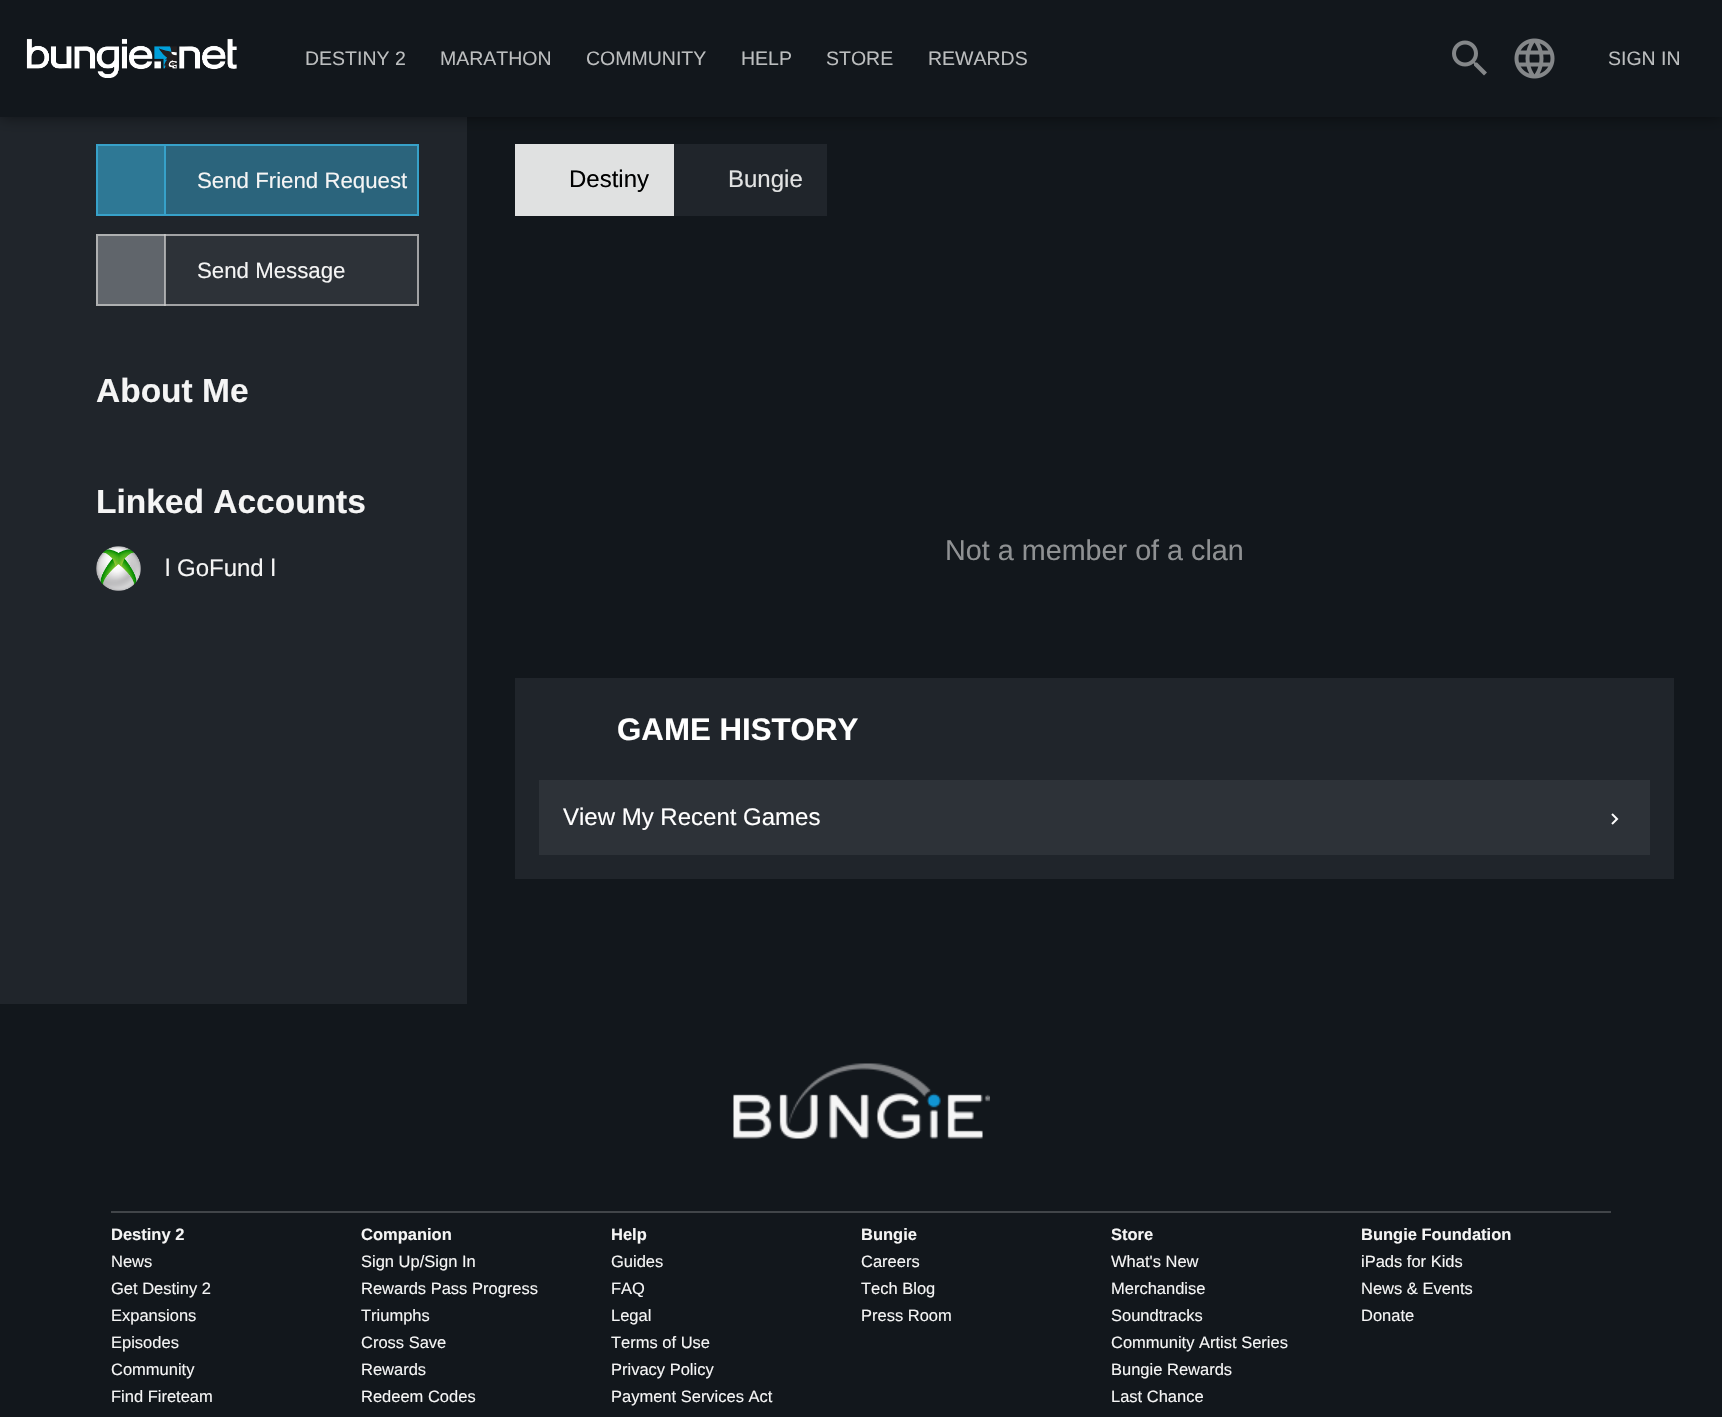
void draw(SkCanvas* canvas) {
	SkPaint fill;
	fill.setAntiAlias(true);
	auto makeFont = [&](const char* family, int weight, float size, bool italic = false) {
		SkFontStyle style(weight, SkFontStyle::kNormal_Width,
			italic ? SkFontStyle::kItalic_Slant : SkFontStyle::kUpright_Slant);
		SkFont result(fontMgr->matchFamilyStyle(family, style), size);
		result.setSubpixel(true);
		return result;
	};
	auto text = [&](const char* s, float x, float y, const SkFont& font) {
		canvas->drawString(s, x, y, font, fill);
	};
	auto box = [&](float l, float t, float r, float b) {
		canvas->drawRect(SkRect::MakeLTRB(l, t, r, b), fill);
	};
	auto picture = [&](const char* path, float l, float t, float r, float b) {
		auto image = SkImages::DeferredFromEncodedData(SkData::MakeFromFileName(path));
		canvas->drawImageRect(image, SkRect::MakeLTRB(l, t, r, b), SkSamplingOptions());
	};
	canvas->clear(0xFF12171C);
	fill.setColor(0xFF20252B);
	box(0, 117, 467, 1004);
	fill.setColor(0x80000000);
	fill.setMaskFilter(SkMaskFilter::MakeBlur(kNormal_SkBlurStyle, 7.5f));
	canvas->drawRect(SkRect::MakeLTRB(0, 0, 1722, 117), fill);
	fill.setMaskFilter(nullptr);
	fill.setColor(0xFF12171C);
	box(0, 0, 1722, 117);
	picture("image0.png", 26, 38, 237, 78);
	picture("image1.png", 1452, 40, 1487, 76);
	picture("image2.png", 1514, 38, 1555, 79);
	fill.setColor(0xFF2B647C);
	box(166, 146, 417, 214);
	fill.setColor(0xFF2E7895);
	box(98, 146, 164, 214);
	fill.setColor(0xFF37A1C9);
	box(164, 144, 166, 216);
	fill.setStyle(SkPaint::kStroke_Style);
	fill.setStrokeWidth(2);
	canvas->drawRect(SkRect::MakeLTRB(97, 145, 418, 215), fill);
	fill.setStyle(SkPaint::kFill_Style);
	fill.setColor(0xFF2D3238);
	box(166, 234, 419, 306);
	fill.setColor(0xFFA0A2A3);
	box(165, 234, 166, 306);
	fill.setColor(0xFF60656B);
	box(96, 234, 164, 306);
	fill.setColor(0xFFAEAFB1);
	box(164, 234, 165, 306);
	fill.setStyle(SkPaint::kStroke_Style);
	fill.setColor(0xBACBCBCB);
	canvas->drawRect(SkRect::MakeLTRB(97, 235, 418, 305), fill);
	picture("image3.png", 96, 546, 141, 591);
	fill.setStyle(SkPaint::kFill_Style);
	fill.setColor(0xFFE0E1E1);
	box(515, 144, 674, 216);
	fill.setColor(0xFF20252B);
	box(674, 144, 827, 216);
	box(515, 678, 1674, 879);
	fill.setColor(0xFF2D3238);
	box(539, 780, 1650, 855);
	picture("image4.png", 1611, 813, 1619, 825);
	picture("image5.png", 733, 1063, 990, 1139);
	fill.setColor(0xFF414549);
	box(111, 1211, 1611, 1213);
	auto font1 = makeFont("Liberation Sans", 400, 19.5f);
	fill.setColor(0xFFBCBEBF);
	text("DESTINY 2", 305, 65, font1);
	text("MARATHON", 440, 65, font1);
	text("COMMUNITY", 586, 65, font1);
	text("HELP", 741, 65, font1);
	text("STORE", 826, 65, font1);
	text("REWARDS", 928, 65, font1);
	text("SIGN IN", 1608, 65, font1);
	auto font2 = makeFont("Liberation Sans", 400, 22.25f);
	fill.setColor(0xFFF5F5F5);
	text("Send Friend Request", 197, 188, font2);
	text("Send Message", 197, 278, font2);
	auto font3 = makeFont("Liberation Sans", 700, 33.5f);
	text("About Me", 96, 402, font3);
	text("Linked Accounts", 96, 513, font3);
	auto font4 = makeFont("Liberation Sans", 400, 24);
	text("l GoFund l", 165, 576, font4);
	fill.setColor(0xFF000000);
	text("Destiny", 569, 187, font4);
	fill.setColor(0xFFE2E3E3);
	text("Bungie", 728, 187, font4);
	auto font5 = makeFont("Liberation Sans", 400, 28.75f);
	fill.setColor(0xFF8F9193);
	text("Not a member of a clan", 945, 560, font5);
	auto font6 = makeFont("Liberation Sans", 700, 31.25f);
	fill.setColor(0xFFFFFFFF);
	text("GAME HISTORY", 617, 740, font6);
	text("View My Recent Games", 563, 825, font4);
	auto font7 = makeFont("Liberation Sans", 700, 16.5f);
	fill.setColor(0xFFF5F5F5);
	text("Destiny 2", 111, 1240, font7);
	auto font8 = makeFont("Liberation Sans", 400, 16.5f);
	text("News", 111, 1267, font8);
	text("Get Destiny 2", 111, 1294, font8);
	text("Expansions", 111, 1321, font8);
	text("Episodes", 111, 1348, font8);
	text("Community", 111, 1375, font8);
	text("Find Fireteam", 111, 1402, font8);
	text("Companion", 361, 1240, font7);
	text("Sign Up/Sign In", 361, 1267, font8);
	text("Rewards Pass Progress", 361, 1294, font8);
	text("Triumphs", 361, 1321, font8);
	text("Cross Save", 361, 1348, font8);
	text("Rewards", 361, 1375, font8);
	text("Redeem Codes", 361, 1402, font8);
	text("Help", 611, 1240, font7);
	text("Guides", 611, 1267, font8);
	text("FAQ", 611, 1294, font8);
	text("Legal", 611, 1321, font8);
	text("Terms of Use", 611, 1348, font8);
	text("Privacy Policy", 611, 1375, font8);
	text("Payment Services Act", 611, 1402, font8);
	text("Bungie", 861, 1240, font7);
	text("Careers", 861, 1267, font8);
	text("Tech Blog", 861, 1294, font8);
	text("Press Room", 861, 1321, font8);
	text("Store", 1111, 1240, font7);
	text("What's New", 1111, 1267, font8);
	text("Merchandise", 1111, 1294, font8);
	text("Soundtracks", 1111, 1321, font8);
	text("Community Artist Series", 1111, 1348, font8);
	text("Bungie Rewards", 1111, 1375, font8);
	text("Last Chance", 1111, 1402, font8);
	text("Bungie Foundation", 1361, 1240, font7);
	text("iPads for Kids", 1361, 1267, font8);
	text("News & Events", 1361, 1294, font8);
	text("Donate", 1361, 1321, font8);
}
